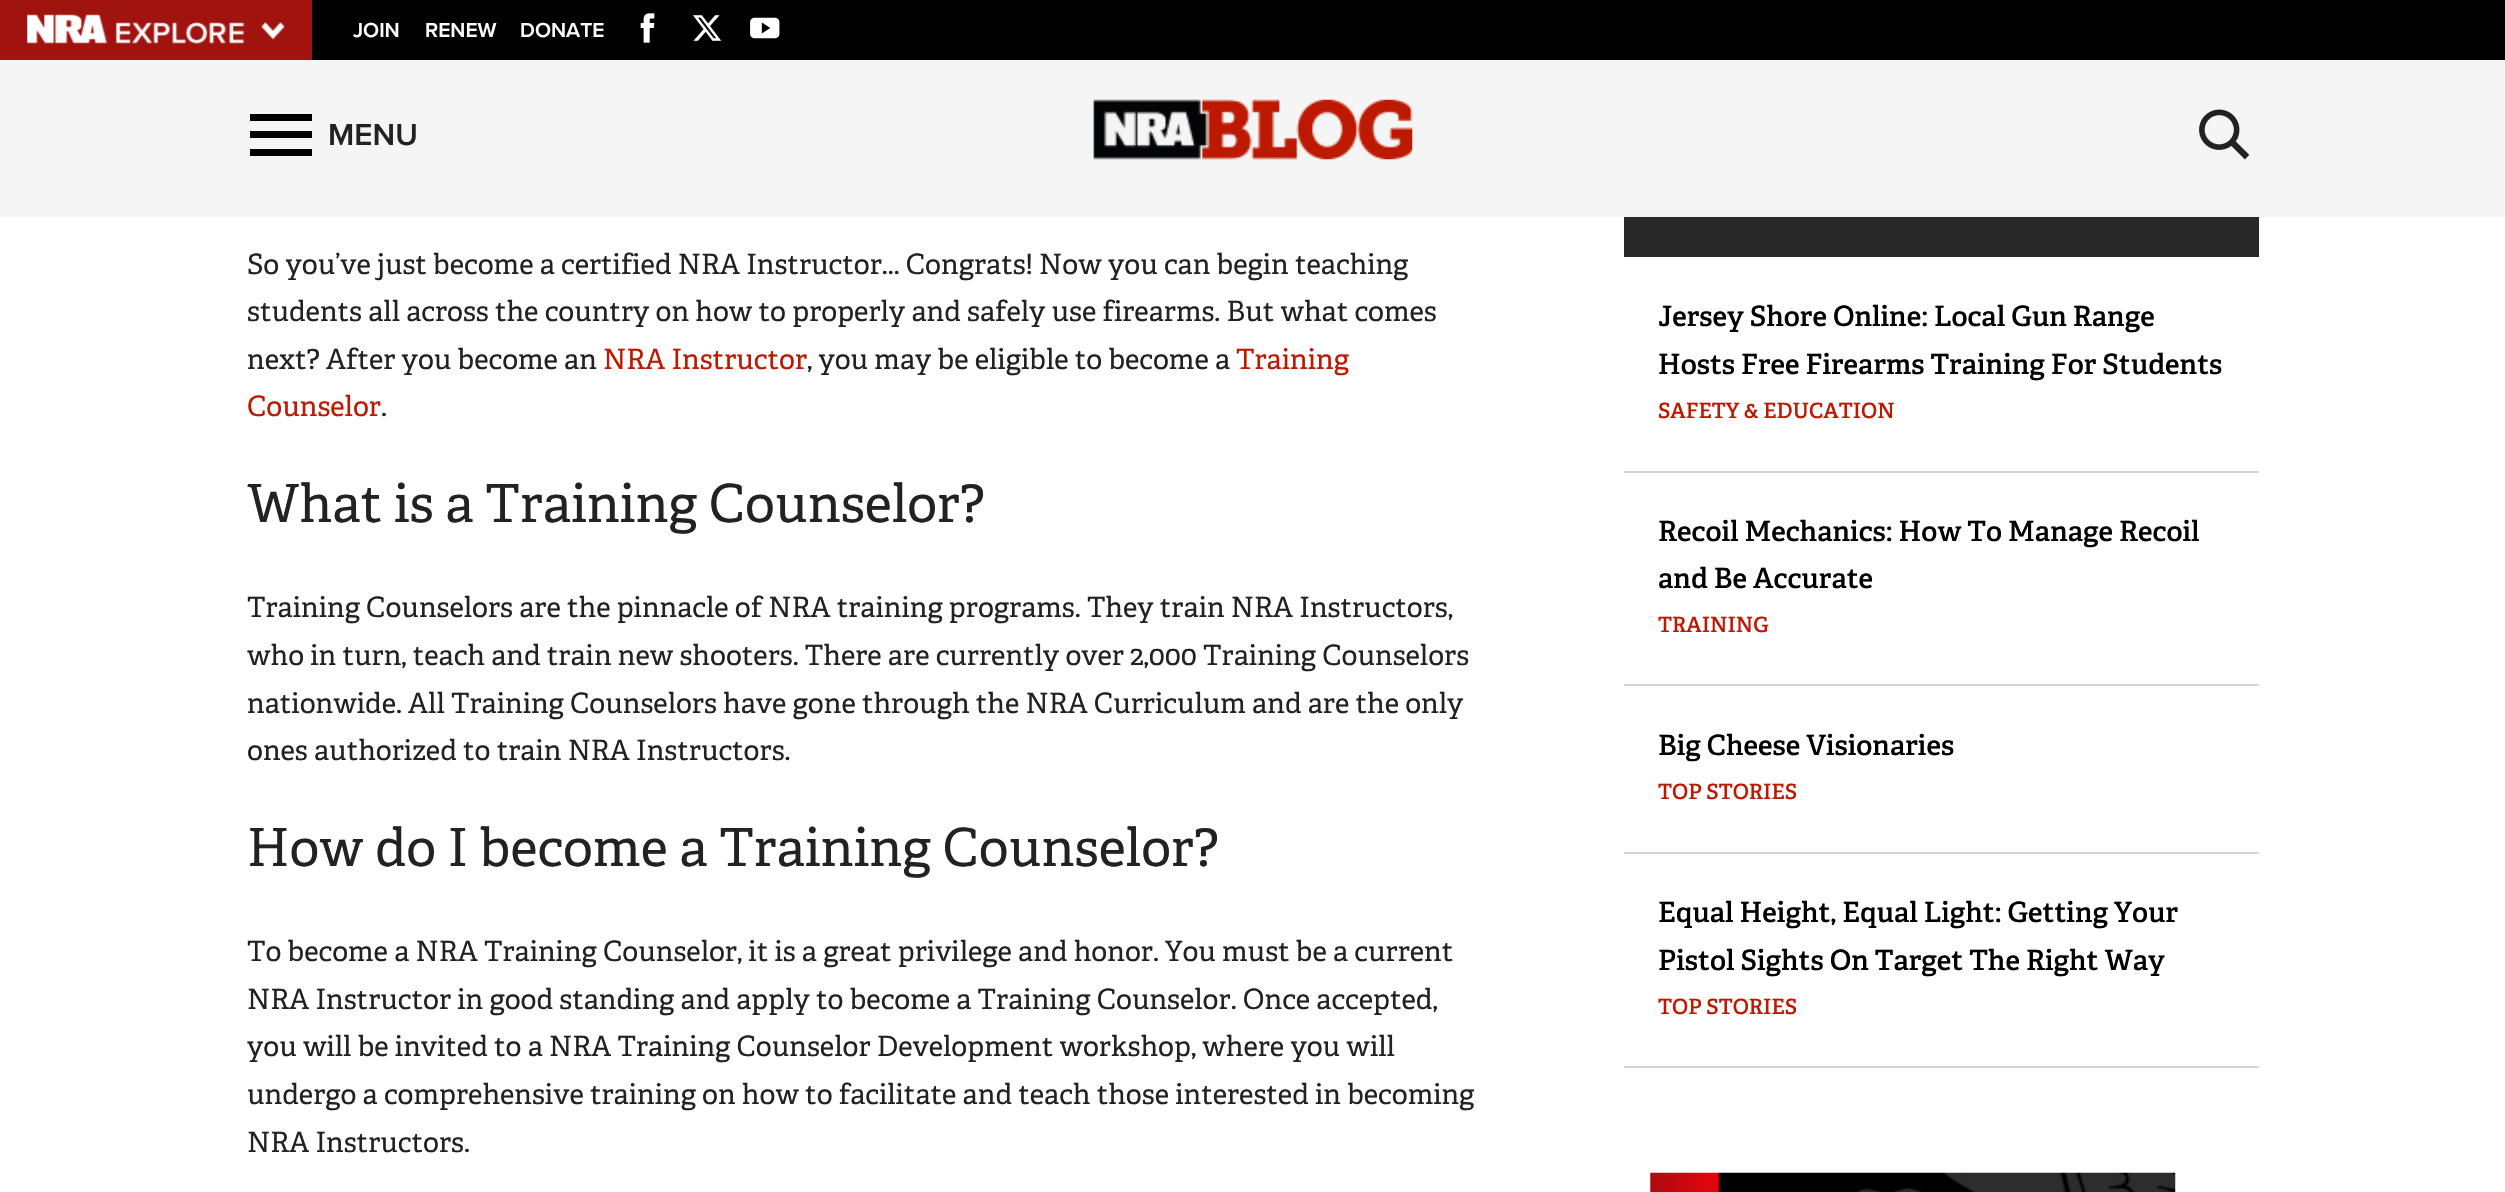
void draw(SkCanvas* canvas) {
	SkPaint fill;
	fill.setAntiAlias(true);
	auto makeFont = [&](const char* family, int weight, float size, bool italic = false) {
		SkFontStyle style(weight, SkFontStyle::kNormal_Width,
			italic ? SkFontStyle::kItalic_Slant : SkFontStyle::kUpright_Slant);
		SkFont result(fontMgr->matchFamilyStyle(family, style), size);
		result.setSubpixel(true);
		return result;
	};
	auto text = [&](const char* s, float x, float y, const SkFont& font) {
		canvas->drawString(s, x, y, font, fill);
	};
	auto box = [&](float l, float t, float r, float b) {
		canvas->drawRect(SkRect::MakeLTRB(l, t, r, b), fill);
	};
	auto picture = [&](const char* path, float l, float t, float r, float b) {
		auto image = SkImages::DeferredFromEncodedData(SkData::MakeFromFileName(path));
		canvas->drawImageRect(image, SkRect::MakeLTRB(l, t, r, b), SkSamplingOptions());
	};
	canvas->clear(0xFFFFFFFF);
	fill.setColor(0xFF000000);
	box(312, 0, 2505, 60);
	fill.setColor(0xFFA1130E);
	box(0, 0, 312, 60);
	picture("image0.png", 27, 14, 285, 45);
	picture("image1.png", 640, 13, 655, 43);
	picture("image2.png", 693, 15, 722, 41);
	picture("image3.png", 750, 17, 780, 39);
	fill.setColor(0xFFF5F5F5);
	box(0, 60, 2505, 217);
	fill.setColor(0xFF000000);
	box(250, 131, 312, 138);
	box(250, 114, 312, 121);
	box(250, 149, 312, 156);
	picture("image4.png", 1093, 99, 1413, 160);
	picture("image5.png", 2199, 109, 2250, 160);
	fill.setColor(0xFF282828);
	box(1624, 217, 2259, 257);
	fill.setColor(0xFFD3D3D3);
	box(1624, 471, 2259, 473);
	box(1624, 684, 2259, 686);
	box(1624, 852, 2259, 854);
	box(1624, 1066, 2259, 1068);
	picture("image6.png", 1650, 1172, 2176, 1192);
	auto font1 = makeFont("Proxima Nova", 600, 21);
	fill.setColor(0xFFFFFFFF);
	text("JOIN", 353, 37, font1);
	text("RENEW", 425, 37, font1);
	text("DONATE", 520, 37, font1);
	auto font2 = makeFont("Proxima Nova", 600, 31.5f);
	fill.setColor(0xFF222222);
	text("MENU", 328, 145, font2);
	auto font3 = makeFont("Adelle", 400, 28);
	text("So you’ve just become a certified NRA Instructor... Congrats! Now you can begin teaching", 247, 274, font3);
	text("students all across the country on how to properly and safely use firearms. But what comes", 247, 321, font3);
	text("next? After you become an", 247, 369, font3);
	fill.setColor(0xFFBD1900);
	text("NRA Instructor", 603, 369, font3);
	fill.setColor(0xFF222222);
	text(", you may be eligible to become a", 807, 369, font3);
	fill.setColor(0xFFBD1900);
	text("Training", 1236, 369, font3);
	text("Counselor", 247, 416, font3);
	fill.setColor(0xFF222222);
	text(".", 381, 416, font3);
	auto font4 = makeFont("Adelle", 400, 52.5f);
	text("What is a Training Counselor?", 247, 522, font4);
	text("Training Counselors are the pinnacle of NRA training programs. They train NRA Instructors,", 247, 617, font3);
	text("who in turn, teach and train new shooters. There are currently over 2,000 Training Counselors", 247, 665, font3);
	text("nationwide. All Training Counselors have gone through the NRA Curriculum and are the only", 247, 713, font3);
	text("ones authorized to train NRA Instructors.", 247, 760, font3);
	text("How do I become a Training Counselor?", 247, 866, font4);
	text("To become a NRA Training Counselor, it is a great privilege and honor. You must be a current", 247, 961, font3);
	text("NRA Instructor in good standing and apply to become a Training Counselor. Once accepted,", 247, 1009, font3);
	text("you will be invited to a NRA Training Counselor Development workshop, where you will", 247, 1056, font3);
	text("undergo a comprehensive training on how to facilitate and teach those interested in becoming", 247, 1104, font3);
	text("NRA Instructors.", 247, 1152, font3);
	auto font5 = makeFont("Adelle", 600, 28);
	fill.setColor(0xFF000000);
	text("Jersey Shore Online: Local Gun Range", 1658, 326, font5);
	text("Hosts Free Firearms Training For Students", 1658, 374, font5);
	auto font6 = makeFont("Adelle", 600, 21);
	fill.setColor(0xFFBD1900);
	text("SAFETY & EDUCATION", 1658, 418, font6);
	fill.setColor(0xFF000000);
	text("Recoil Mechanics: How To Manage Recoil", 1658, 541, font5);
	text("and Be Accurate", 1658, 588, font5);
	fill.setColor(0xFFBD1900);
	text("TRAINING", 1658, 632, font6);
	fill.setColor(0xFF000000);
	text("Big Cheese Visionaries", 1658, 755, font5);
	fill.setColor(0xFFBD1900);
	text("TOP STORIES", 1658, 799, font6);
	fill.setColor(0xFF000000);
	text("Equal Height, Equal Light: Getting Your", 1658, 922, font5);
	text("Pistol Sights On Target The Right Way", 1658, 970, font5);
	fill.setColor(0xFFBD1900);
	text("TOP STORIES", 1658, 1014, font6);
}
